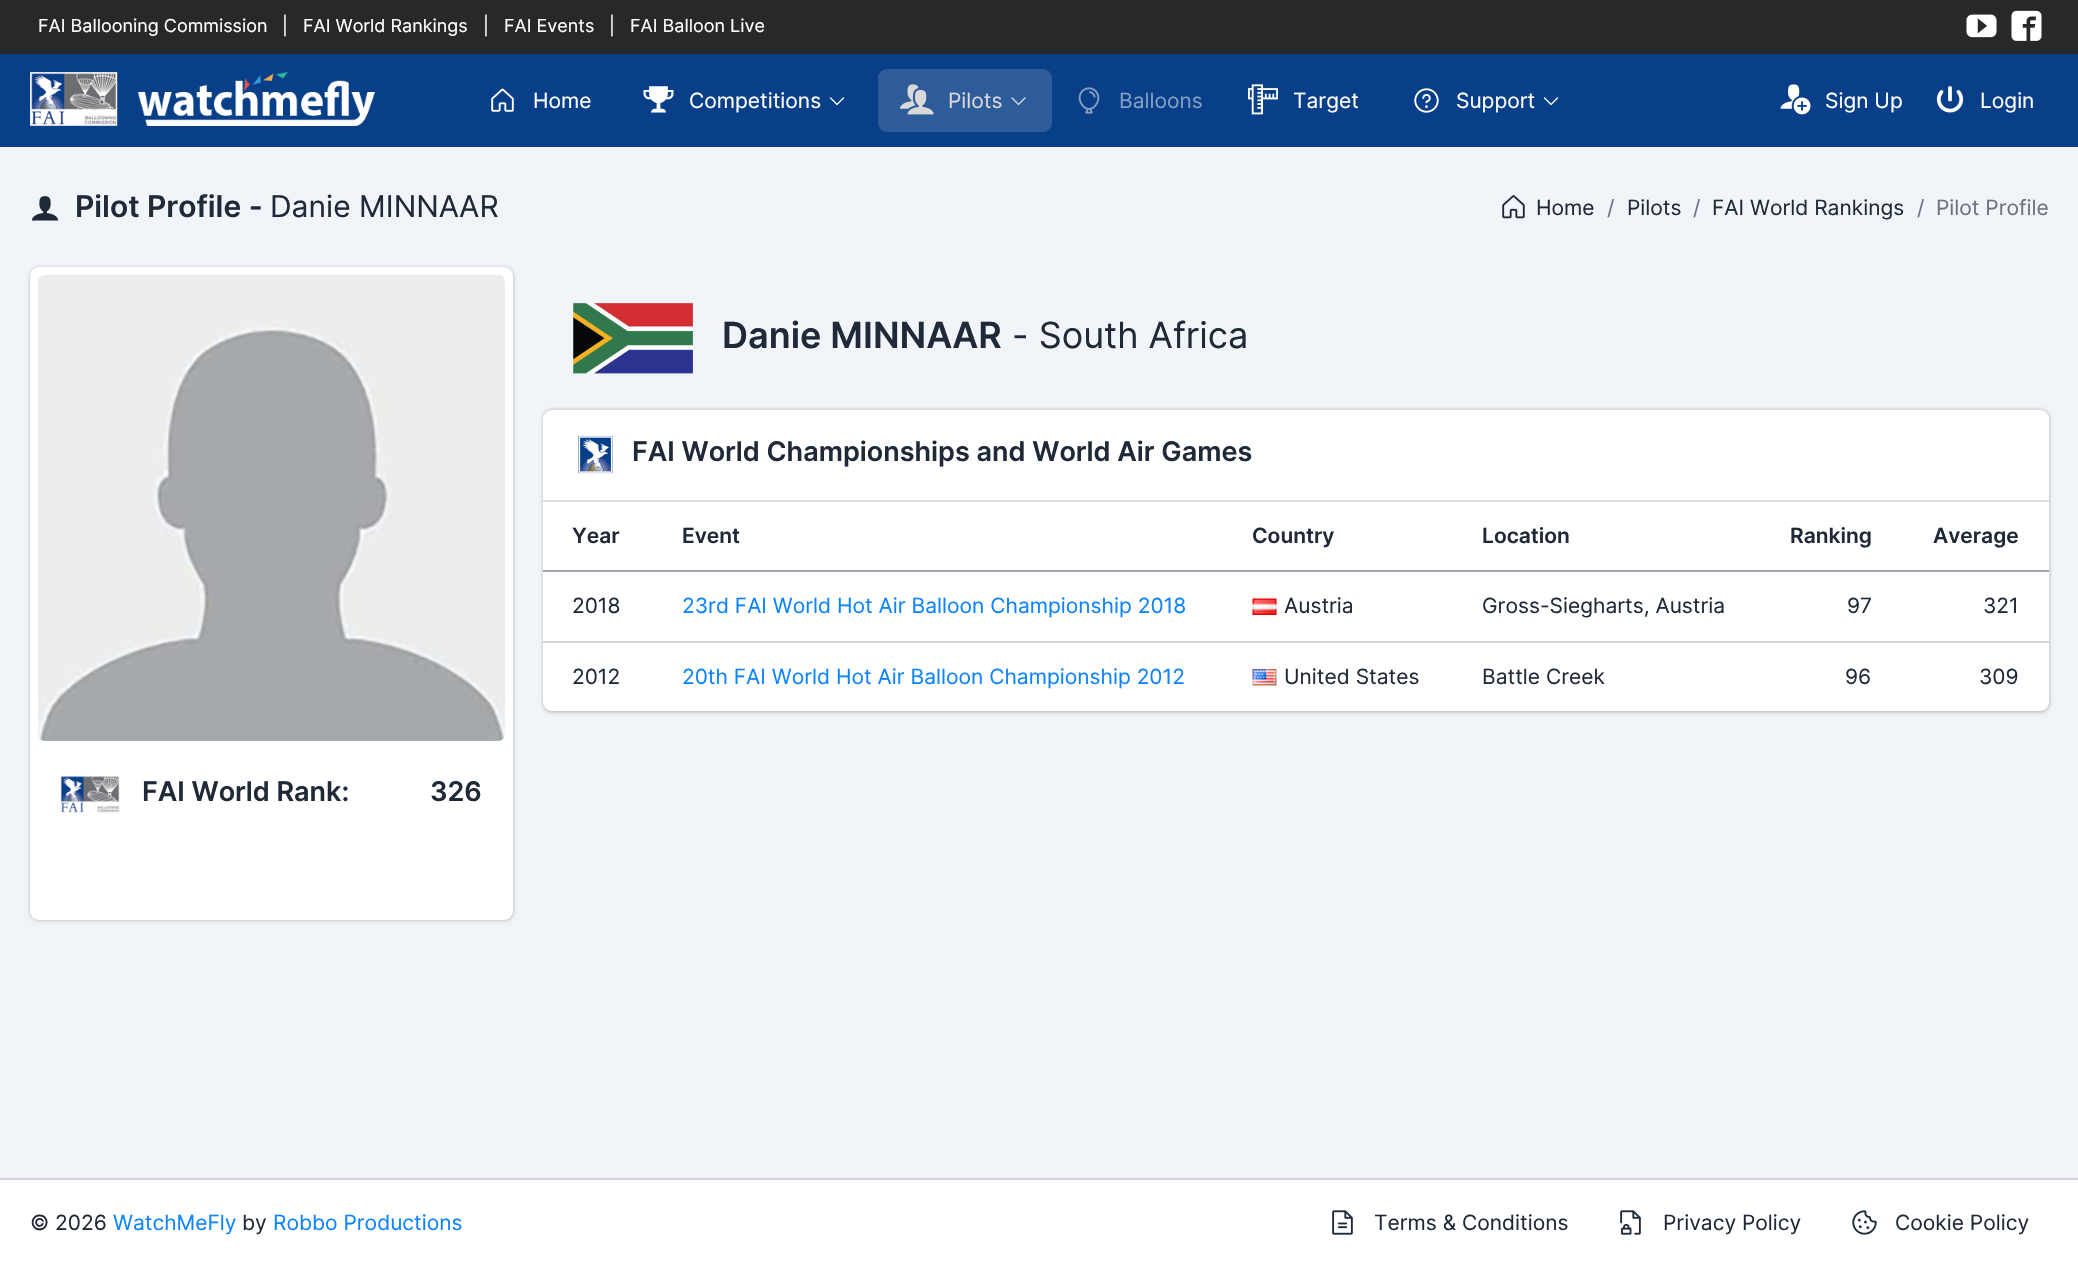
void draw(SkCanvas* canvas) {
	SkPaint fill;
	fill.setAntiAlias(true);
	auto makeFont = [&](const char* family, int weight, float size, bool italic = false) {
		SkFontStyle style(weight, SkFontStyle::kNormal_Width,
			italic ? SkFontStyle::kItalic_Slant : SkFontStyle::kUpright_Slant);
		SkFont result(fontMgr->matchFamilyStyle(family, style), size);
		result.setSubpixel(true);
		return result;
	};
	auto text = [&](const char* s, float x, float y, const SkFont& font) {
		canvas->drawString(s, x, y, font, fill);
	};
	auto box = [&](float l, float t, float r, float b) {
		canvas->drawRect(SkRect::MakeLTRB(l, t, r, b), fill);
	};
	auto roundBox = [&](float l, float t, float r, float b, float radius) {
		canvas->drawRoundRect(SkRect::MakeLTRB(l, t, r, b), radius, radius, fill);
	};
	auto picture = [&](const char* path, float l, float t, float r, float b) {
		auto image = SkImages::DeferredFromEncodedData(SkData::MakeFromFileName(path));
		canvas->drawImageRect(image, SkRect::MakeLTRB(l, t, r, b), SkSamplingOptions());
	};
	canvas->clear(0xFFF1F4F9);
	fill.setColor(0xFF282828);
	box(0, 0, 2078, 54);
	picture("image0.png", 1966, 14, 1997, 38);
	picture("image1.png", 2011, 10, 2042, 41);
	fill.setColor(0xFF093F89);
	box(0, 54, 2078, 147);
	picture("image2.png", 30, 72, 375, 126);
	picture("image3.png", 491, 88, 514, 112);
	picture("image4.png", 643, 86, 674, 113);
	picture("image5.png", 829, 97, 845, 105);
	fill.setColor(0xFF2E5C9B);
	roundBox(878, 69, 1052, 132, 9);
	picture("image6.png", 900, 84, 934, 115);
	picture("image7.png", 1011, 97, 1026, 106);
	picture("image8.png", 1078, 87, 1100, 114);
	picture("image9.png", 1248, 84, 1278, 115);
	picture("image10.png", 1414, 88, 1439, 113);
	picture("image5.png", 1543, 97, 1559, 105);
	picture("image11.png", 1780, 84, 1811, 115);
	picture("image12.png", 1936, 86, 1964, 113);
	picture("image13.png", 31, 196, 59, 221);
	picture("image14.png", 1502, 195, 1525, 219);
	picture("image15.png", 573, 303, 693, 374);
	fill.setColor(0x1F000000);
	fill.setMaskFilter(SkMaskFilter::MakeBlur(kNormal_SkBlurStyle, 2));
	canvas->drawRoundRect(SkRect::MakeLTRB(543, 411, 2049, 713), 9, 9, fill);
	fill.setMaskFilter(nullptr);
	fill.setColor(0x12000000);
	fill.setMaskFilter(SkMaskFilter::MakeBlur(kNormal_SkBlurStyle, 1));
	canvas->drawRoundRect(SkRect::MakeLTRB(542, 408, 2051, 713), 11, 11, fill);
	fill.setMaskFilter(nullptr);
	fill.setColor(0xFFFFFFFF);
	roundBox(543, 410, 2049, 711, 9);
	fill.setColor(0xFFDFDFDF);
	box(543, 500, 2049, 502);
	picture("image16.png", 578, 435, 613, 474);
	fill.setColor(0xFF9CA3AF);
	box(543, 570, 2049, 572);
	picture("image17.png", 1252, 598, 1277, 615);
	picture("image18.png", 1252, 669, 1277, 686);
	fill.setColor(0xFFD1D5DB);
	box(543, 641, 2049, 643);
	fill.setColor(0x1F000000);
	fill.setMaskFilter(SkMaskFilter::MakeBlur(kNormal_SkBlurStyle, 2));
	canvas->drawRoundRect(SkRect::MakeLTRB(30, 269, 513, 921), 9, 9, fill);
	fill.setMaskFilter(nullptr);
	fill.setColor(0x12000000);
	fill.setMaskFilter(SkMaskFilter::MakeBlur(kNormal_SkBlurStyle, 1));
	canvas->drawRoundRect(SkRect::MakeLTRB(29, 266, 515, 921), 11, 11, fill);
	fill.setMaskFilter(nullptr);
	fill.setColor(0xFFFFFFFF);
	roundBox(30, 267, 513, 920, 9);
	picture("image19.png", 37, 274, 506, 741);
	picture("image20.png", 60, 776, 120, 813);
	box(0, 1180, 2078, 1265);
	fill.setColor(0xFFD1D5DB);
	box(0, 1178, 2078, 1180);
	picture("image21.png", 1332, 1210, 1353, 1235);
	picture("image22.png", 1620, 1210, 1641, 1235);
	picture("image23.png", 1852, 1210, 1877, 1235);
	auto font1 = makeFont("Inter", 400, 18);
	fill.setColor(0xFFFFFFFF);
	text("FAI Ballooning Commission", 38, 32, font1);
	text("|", 282, 32, font1);
	text("FAI World Rankings", 303, 32, font1);
	text("|", 483, 32, font1);
	text("FAI Events", 504, 32, font1);
	text("|", 609, 32, font1);
	text("FAI Balloon Live", 630, 32, font1);
	auto font2 = makeFont("Inter", 400, 21);
	text("Home", 533, 108, font2);
	text("Competitions", 689, 108, font2);
	fill.setColor(0xFFD9D9D9);
	text("Pilots", 948, 108, font2);
	fill.setColor(0xFF849FC4);
	text("Balloons", 1119, 108, font2);
	fill.setColor(0xFFFFFFFF);
	text("Target", 1293, 108, font2);
	text("Support", 1456, 108, font2);
	text("Sign Up", 1825, 108, font2);
	text("Login", 1980, 108, font2);
	auto font3 = makeFont("Inter", 600, 30);
	fill.setColor(0xFF1F2937);
	text("Pilot Profile -", 75, 217, font3);
	auto font4 = makeFont("Inter", 400, 30);
	text("Danie MINNAAR", 270, 217, font4);
	text("Home", 1536, 215, font2);
	fill.setColor(0xFF6B7280);
	text("/", 1607, 215, font2);
	fill.setColor(0xFF1F2937);
	text("Pilots", 1627, 215, font2);
	fill.setColor(0xFF6B7280);
	text("/", 1693, 215, font2);
	fill.setColor(0xFF1F2937);
	text("FAI World Rankings", 1712, 215, font2);
	fill.setColor(0xFF6B7280);
	text("/", 1917, 215, font2);
	text("Pilot Profile", 1936, 215, font2);
	auto font5 = makeFont("Inter", 600, 36);
	fill.setColor(0xFF1F2937);
	text("Danie MINNAAR", 722, 348, font5);
	auto font6 = makeFont("Inter", 400, 36);
	text("- South Africa", 1012, 348, font6);
	auto font7 = makeFont("Inter", 600, 27);
	text("FAI World Championships and World Air Games", 632, 461, font7);
	auto font8 = makeFont("Inter", 600, 21);
	text("Year", 572, 543, font8);
	text("Event", 682, 543, font8);
	text("Country", 1252, 543, font8);
	text("Location", 1482, 543, font8);
	text("Ranking", 1790, 543, font8);
	text("Average", 1933, 543, font8);
	text("2018", 572, 613, font2);
	fill.setColor(0xFF0C83FF);
	text("23rd FAI World Hot Air Balloon Championship 2018", 682, 613, font2);
	fill.setColor(0xFF1F2937);
	text("Austria", 1284, 613, font2);
	text("Gross-Siegharts, Austria", 1482, 613, font2);
	text("97", 1847, 613, font2);
	text("321", 1983, 613, font2);
	text("2012", 572, 684, font2);
	fill.setColor(0xFF0C83FF);
	text("20th FAI World Hot Air Balloon Championship 2012", 682, 684, font2);
	fill.setColor(0xFF1F2937);
	text("United States", 1284, 684, font2);
	text("Battle Creek", 1482, 684, font2);
	text("96", 1845, 684, font2);
	text("309", 1979, 684, font2);
	text("FAI World Rank:", 142, 801, font7);
	text("326", 430, 801, font7);
	text("© 2026", 30, 1230, font2);
	fill.setColor(0xFF0C83FF);
	text("WatchMeFly", 113, 1230, font2);
	fill.setColor(0xFF1F2937);
	text("by", 242, 1230, font2);
	fill.setColor(0xFF0C83FF);
	text("Robbo Productions", 273, 1230, font2);
	fill.setColor(0xFF1F2937);
	text("Terms & Conditions", 1374, 1230, font2);
	text("Privacy Policy", 1663, 1230, font2);
	text("Cookie Policy", 1895, 1230, font2);
}
